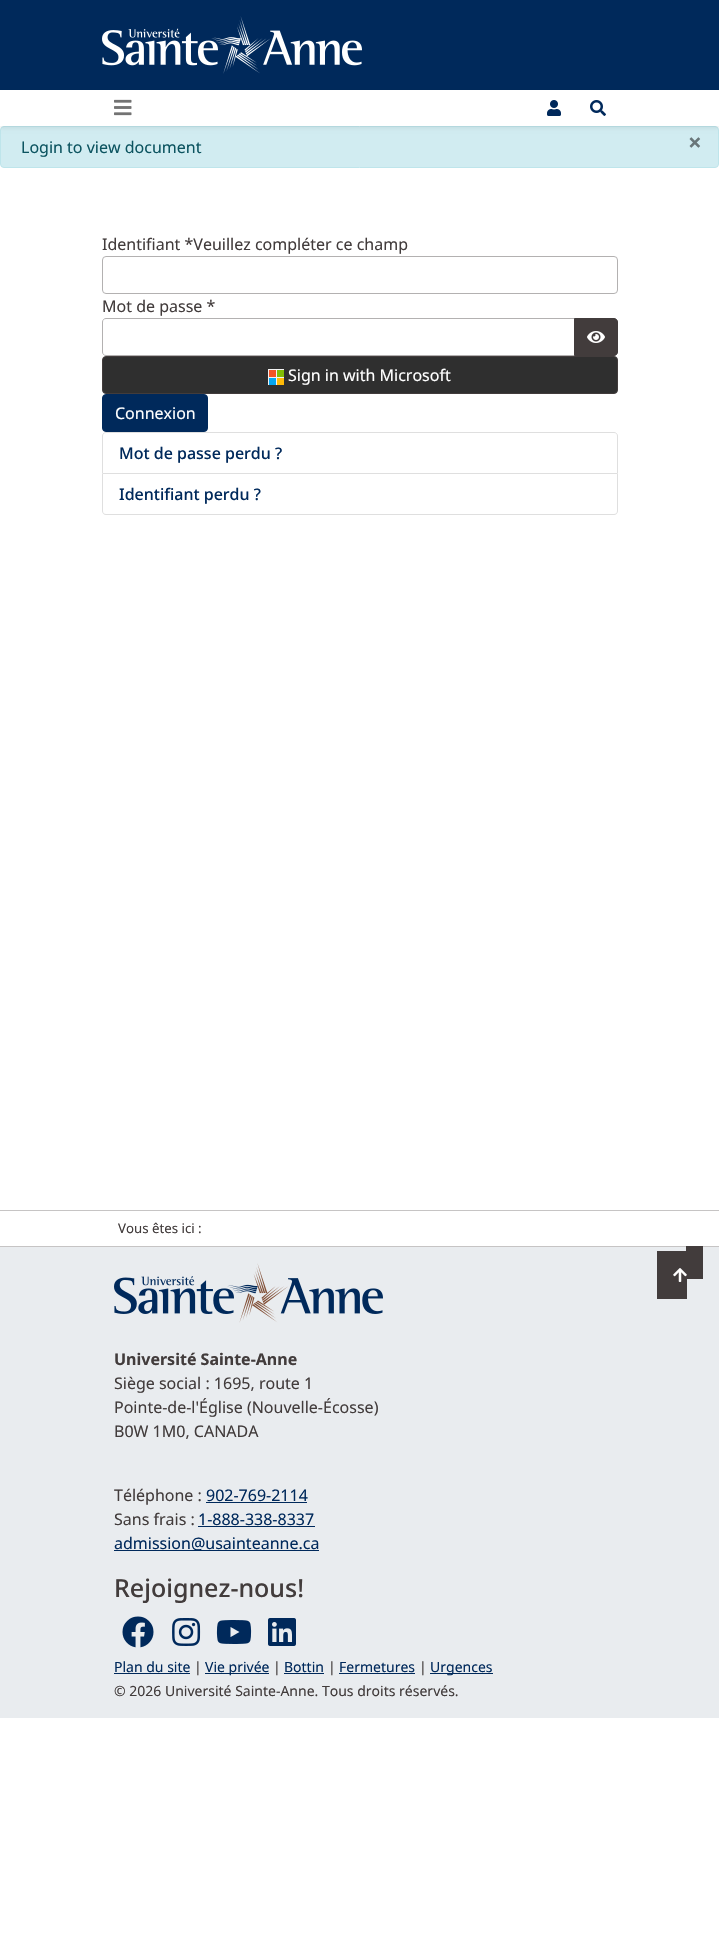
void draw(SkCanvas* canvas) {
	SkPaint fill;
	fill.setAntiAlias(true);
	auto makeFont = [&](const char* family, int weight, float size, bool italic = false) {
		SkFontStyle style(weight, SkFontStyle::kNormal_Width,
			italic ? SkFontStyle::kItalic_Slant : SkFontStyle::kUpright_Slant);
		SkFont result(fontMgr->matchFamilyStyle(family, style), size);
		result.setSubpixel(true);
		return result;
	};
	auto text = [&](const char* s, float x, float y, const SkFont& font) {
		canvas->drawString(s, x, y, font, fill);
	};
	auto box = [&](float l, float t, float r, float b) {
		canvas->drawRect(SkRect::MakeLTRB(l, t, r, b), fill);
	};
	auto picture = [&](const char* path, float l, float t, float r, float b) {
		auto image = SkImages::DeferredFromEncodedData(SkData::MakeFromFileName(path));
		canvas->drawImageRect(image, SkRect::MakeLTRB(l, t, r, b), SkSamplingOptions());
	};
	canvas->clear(0xFFFFFFFF);
	fill.setColor(0xFF00295B);
	box(0, 0, 719, 90);
	picture("image0.png", 102, 16, 362, 74);
	fill.setColor(0xFFD1ECF1);
	canvas->drawRoundRect(SkRect::MakeLTRB(0.5f, 126.5f, 718.5f, 167.5f), 3.5f, 3.5f, fill);
	fill.setStyle(SkPaint::kStroke_Style);
	fill.setStrokeWidth(1);
	fill.setColor(0xFFBEE5EB);
	canvas->drawRoundRect(SkRect::MakeLTRB(0.5f, 126.5f, 718.5f, 167.5f), 3.5f, 3.5f, fill);
	fill.setStyle(SkPaint::kFill_Style);
	fill.setColor(0x12000000);
	fill.setMaskFilter(SkMaskFilter::MakeBlur(kNormal_SkBlurStyle, 2));
	canvas->drawRect(SkRect::MakeLTRB(0, 92, 719, 128), fill);
	fill.setMaskFilter(nullptr);
	fill.setColor(0xFFFFFFFF);
	box(0, 90, 719, 126);
	picture("image1.png", 114, 99, 132, 116);
	picture("image2.png", 547, 100, 561, 116);
	picture("image3.png", 590, 100, 606, 116);
	fill.setStyle(SkPaint::kStroke_Style);
	fill.setColor(0xFFB3B1B1);
	canvas->drawRoundRect(SkRect::MakeLTRB(102.5f, 256.5f, 617.5f, 293.5f), 3.5f, 3.5f, fill);
	canvas->drawPath(SkPathBuilder().moveTo(106, 318.5f).lineTo(574.5f, 318.5f).lineTo(574.5f, 355.5f).lineTo(106, 355.5f).cubicTo(104, 355.5f, 102.5f, 354, 102.5f, 352).lineTo(102.5f, 322).cubicTo(102.5f, 320, 104, 318.5f, 106, 318.5f).close().detach(), fill);
	fill.setStyle(SkPaint::kFill_Style);
	fill.setColor(0xFF423C3C);
	canvas->drawPath(SkPathBuilder().moveTo(574.5f, 318.5f).lineTo(614, 318.5f).cubicTo(616, 318.5f, 617.5f, 320, 617.5f, 322).lineTo(617.5f, 352).cubicTo(617.5f, 354, 616, 355.5f, 614, 355.5f).lineTo(574.5f, 355.5f).close().detach(), fill);
	fill.setStyle(SkPaint::kStroke_Style);
	canvas->drawPath(SkPathBuilder().moveTo(574.5f, 318.5f).lineTo(614, 318.5f).cubicTo(616, 318.5f, 617.5f, 320, 617.5f, 322).lineTo(617.5f, 352).cubicTo(617.5f, 354, 616, 355.5f, 614, 355.5f).lineTo(574.5f, 355.5f).close().detach(), fill);
	picture("image4.png", 587, 331, 605, 343);
	fill.setStyle(SkPaint::kFill_Style);
	fill.setColor(0xFF2F2F2F);
	canvas->drawRoundRect(SkRect::MakeLTRB(102.5f, 356.5f, 617.5f, 393.5f), 3.5f, 3.5f, fill);
	fill.setStyle(SkPaint::kStroke_Style);
	fill.setColor(0xFF423C3C);
	canvas->drawRoundRect(SkRect::MakeLTRB(102.5f, 356.5f, 617.5f, 393.5f), 3.5f, 3.5f, fill);
	picture("image5.png", 268, 369, 284, 385);
	fill.setStyle(SkPaint::kFill_Style);
	fill.setColor(0xFF00295B);
	canvas->drawRoundRect(SkRect::MakeLTRB(102.5f, 394.5f, 207.5f, 431.5f), 3.5f, 3.5f, fill);
	fill.setStyle(SkPaint::kStroke_Style);
	canvas->drawRoundRect(SkRect::MakeLTRB(102.5f, 394.5f, 207.5f, 431.5f), 3.5f, 3.5f, fill);
	fill.setColor(0xFFDFDFDF);
	canvas->drawPath(SkPathBuilder().moveTo(106, 432.5f).lineTo(614, 432.5f).cubicTo(616, 432.5f, 617.5f, 434, 617.5f, 436).lineTo(617.5f, 473.5f).lineTo(102.5f, 473.5f).lineTo(102.5f, 436).cubicTo(102.5f, 434, 104, 432.5f, 106, 432.5f).close().detach(), fill);
	fill.setStyle(SkPaint::kFill_Style);
	canvas->drawPath(SkPathBuilder(SkPathFillType::kEvenOdd).moveTo(102, 474).lineTo(618, 474).lineTo(618, 511).cubicTo(618, 513, 616, 515, 614, 515).lineTo(106, 515).cubicTo(104, 515, 102, 513, 102, 511).close().moveTo(103, 474).lineTo(617, 474).lineTo(617, 511).cubicTo(617, 513, 616, 514, 614, 514).lineTo(106, 514).cubicTo(104, 514, 103, 513, 103, 511).close().detach(), fill);
	fill.setColor(0xFFC6C4C4);
	box(0, 1210, 719, 1211);
	fill.setColor(0xFFE9ECEF);
	box(0, 1247, 719, 1718);
	fill.setColor(0xFFC6C4C4);
	box(0, 1246, 719, 1247);
	fill.setColor(0xFF423C3C);
	box(657, 1251, 687, 1299);
	box(686, 1246, 703, 1279);
	picture("image6.png", 673, 1268, 687, 1282);
	picture("image7.png", 114, 1263, 383, 1323);
	fill.setColor(0xFF00295B);
	box(206, 1502, 307, 1503);
	box(198, 1526, 315, 1527);
	box(114, 1550, 319, 1551);
	picture("image8.png", 122, 1616, 154, 1648);
	picture("image9.png", 172, 1618, 201, 1646);
	picture("image10.png", 216, 1620, 252, 1644);
	picture("image11.png", 268, 1618, 296, 1646);
	box(114, 1673, 190, 1674);
	box(205, 1673, 269, 1674);
	box(284, 1673, 324, 1674);
	box(339, 1673, 415, 1674);
	box(430, 1673, 493, 1674);
	auto font1 = makeFont("Noto Sans", 400, 16);
	fill.setColor(0xFF0C5460);
	text("Login to view document", 21, 153, font1);
	auto font2 = makeFont("Noto Sans", 700, 24);
	fill.setColor(0xFF697679);
	text("×", 688, 151, font2);
	fill.setColor(0xFF423C3C);
	text("Identifiant *Veuillez compléter ce champ", 102, 250, font1);
	text("Mot de passe *", 102, 312, font1);
	fill.setColor(0xFFFFFFFF);
	text("Sign in with Microsoft", 288, 381, font1);
	text("Connexion", 115, 419, font1);
	auto font3 = makeFont("Noto Sans", 500, 16);
	fill.setColor(0xFF00295B);
	text("Mot de passe perdu ?", 119, 459, font3);
	text("Identifiant perdu ?", 119, 500, font3);
	auto font4 = makeFont("Noto Sans", 400, 13.25f);
	fill.setColor(0xFF423C3C);
	text("Vous êtes ici :", 118, 1233, font4);
	auto font5 = makeFont("Noto Sans", 700, 16);
	text("Université Sainte-Anne", 114, 1365, font5);
	text("Siège social : 1695, route 1", 114, 1389, font1);
	text("Pointe-de-l'Église (Nouvelle-Écosse)", 114, 1413, font1);
	text("B0W 1M0, CANADA", 114, 1437, font1);
	text("Téléphone :", 114, 1501, font1);
	fill.setColor(0xFF00295B);
	text("902-769-2114", 206, 1501, font1);
	fill.setColor(0xFF423C3C);
	text("Sans frais :", 114, 1525, font1);
	fill.setColor(0xFF00295B);
	text("1-888-338-8337", 198, 1525, font1);
	text("admission@usainteanne.ca", 114, 1549, font1);
	auto font6 = makeFont("Noto Sans", 500, 25);
	fill.setColor(0xFF423C3C);
	text("Rejoignez-nous!", 114, 1597, font6);
	auto font7 = makeFont("Noto Sans", 400, 14);
	fill.setColor(0xFF00295B);
	text("Plan du site", 114, 1672, font7);
	fill.setColor(0xFF423C3C);
	text("|", 194, 1672, font7);
	fill.setColor(0xFF00295B);
	text("Vie privée", 205, 1672, font7);
	fill.setColor(0xFF423C3C);
	text("|", 273, 1672, font7);
	fill.setColor(0xFF00295B);
	text("Bottin", 284, 1672, font7);
	fill.setColor(0xFF423C3C);
	text("|", 328, 1672, font7);
	fill.setColor(0xFF00295B);
	text("Fermetures", 339, 1672, font7);
	fill.setColor(0xFF423C3C);
	text("|", 419, 1672, font7);
	fill.setColor(0xFF00295B);
	text("Urgences", 430, 1672, font7);
	fill.setColor(0xFF423C3C);
	text("© 2026 Université Sainte-Anne. Tous droits réservés.", 114, 1696, font7);
}
